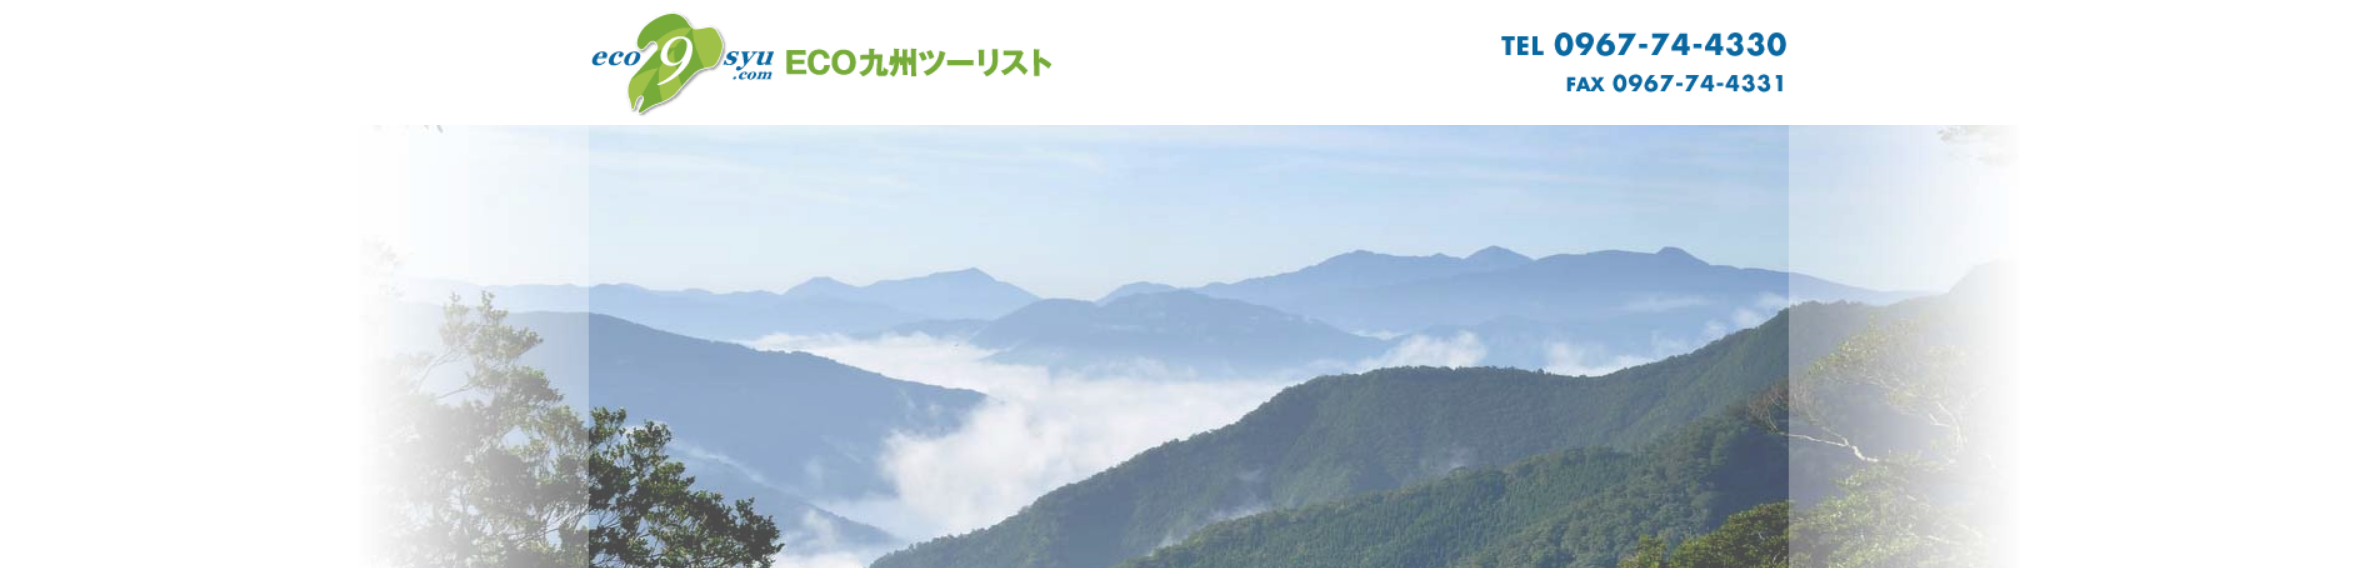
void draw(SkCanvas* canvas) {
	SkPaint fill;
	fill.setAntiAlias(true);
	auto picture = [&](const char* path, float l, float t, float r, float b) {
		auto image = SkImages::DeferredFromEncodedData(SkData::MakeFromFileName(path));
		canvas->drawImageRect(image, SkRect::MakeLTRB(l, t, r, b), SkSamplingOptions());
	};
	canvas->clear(0xFFFFFFFF);
	picture("image0.png", 591, 11, 1787, 117);
	picture("image1.png", 359, 125, 2019, 568);
}
